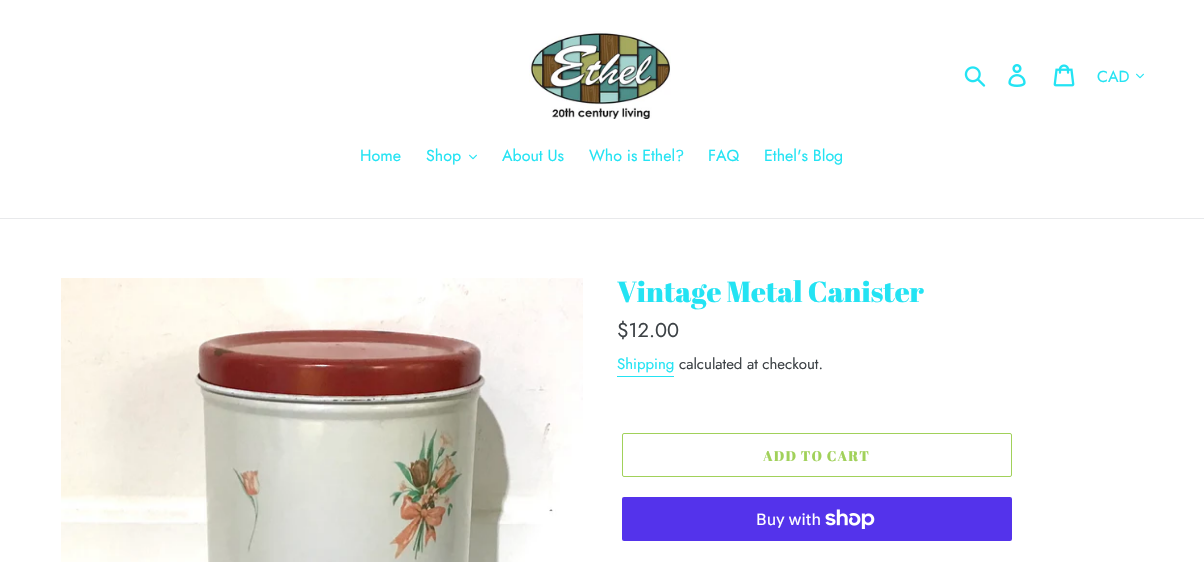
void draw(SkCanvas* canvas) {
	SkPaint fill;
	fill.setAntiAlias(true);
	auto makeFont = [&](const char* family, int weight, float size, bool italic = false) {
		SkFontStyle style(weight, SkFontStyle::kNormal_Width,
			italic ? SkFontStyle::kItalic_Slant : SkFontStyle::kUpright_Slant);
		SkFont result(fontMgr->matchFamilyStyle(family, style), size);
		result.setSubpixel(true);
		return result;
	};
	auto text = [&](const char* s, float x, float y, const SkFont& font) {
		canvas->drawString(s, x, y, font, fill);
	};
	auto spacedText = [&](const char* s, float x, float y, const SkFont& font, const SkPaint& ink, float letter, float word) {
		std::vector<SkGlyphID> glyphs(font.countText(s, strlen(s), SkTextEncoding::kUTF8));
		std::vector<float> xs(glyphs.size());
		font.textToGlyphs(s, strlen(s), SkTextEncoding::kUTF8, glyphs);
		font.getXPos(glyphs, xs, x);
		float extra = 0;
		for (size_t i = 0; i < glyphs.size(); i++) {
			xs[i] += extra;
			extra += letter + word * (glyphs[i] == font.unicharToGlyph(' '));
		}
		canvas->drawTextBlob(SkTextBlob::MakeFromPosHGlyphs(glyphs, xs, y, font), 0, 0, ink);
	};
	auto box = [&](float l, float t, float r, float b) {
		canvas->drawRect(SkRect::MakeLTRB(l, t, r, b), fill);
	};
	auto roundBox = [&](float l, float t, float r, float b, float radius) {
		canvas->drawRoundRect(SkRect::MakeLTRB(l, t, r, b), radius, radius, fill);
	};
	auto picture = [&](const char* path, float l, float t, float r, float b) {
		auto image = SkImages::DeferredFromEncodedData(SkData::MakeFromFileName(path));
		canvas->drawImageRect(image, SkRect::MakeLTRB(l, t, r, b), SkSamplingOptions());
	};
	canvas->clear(0xFFFFFFFF);
	picture("image0.png", 529, 31, 671, 119);
	picture("image1.png", 964, 66, 986, 87);
	picture("image2.png", 1008, 64, 1026, 87);
	picture("image3.png", 1053, 64, 1075, 87);
	picture("image4.png", 1136, 73, 1144, 79);
	fill.setColor(0xFFE8E9EB);
	box(0, 218, 1204, 219);
	picture("image4.png", 469, 154, 477, 160);
	picture("image5.png", 61, 278, 583, 562);
	fill.setColor(0xFF23E3F3);
	box(617, 376, 674, 377);
	fill.setStyle(SkPaint::kStroke_Style);
	fill.setStrokeWidth(1);
	fill.setColor(0xFFA1D15A);
	canvas->drawRoundRect(SkRect::MakeLTRB(622.5f, 433.5f, 1011.5f, 476.5f), 1.5f, 1.5f, fill);
	fill.setStyle(SkPaint::kFill_Style);
	fill.setColor(0xFF5433EB);
	roundBox(622, 497, 1012, 541, 2);
	picture("image6.png", 825, 509, 875, 529);
	auto font1 = makeFont("Jost", 400, 16);
	fill.setColor(0xFF23E3F3);
	text("CAD", 1097, 82, font1);
	text("Home", 360, 161, font1);
	text("Shop", 426, 161, font1);
	text("About Us", 502, 161, font1);
	text("Who is Ethel?", 589, 161, font1);
	text("FAQ", 708, 161, font1);
	text("Ethel's Blog", 764, 161, font1);
	auto font2 = makeFont("Abril Fatface", 400, 29);
	text("Vintage Metal Canister", 617, 302, font2);
	auto font3 = makeFont("Jost", 400, 20);
	fill.setColor(0xFF3D4246);
	text("$12.00", 617, 337, font3);
	auto font4 = makeFont("Jost", 400, 15);
	fill.setColor(0xFF23E3F3);
	text("Shipping", 617, 369, font4);
	fill.setColor(0xFF3D4246);
	text("calculated at checkout.", 679, 369, font4);
	auto font5 = makeFont("Abril Fatface", 400, 14);
	fill.setColor(0xFFA1D15A);
	spacedText("ADD TO CART", 763, 461, font5, fill, 1.1f, 0);
	auto font6 = makeFont("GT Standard", 400, 16);
	fill.setColor(0xFFFFFFFF);
	text("Buy with", 756, 525, font6);
}
